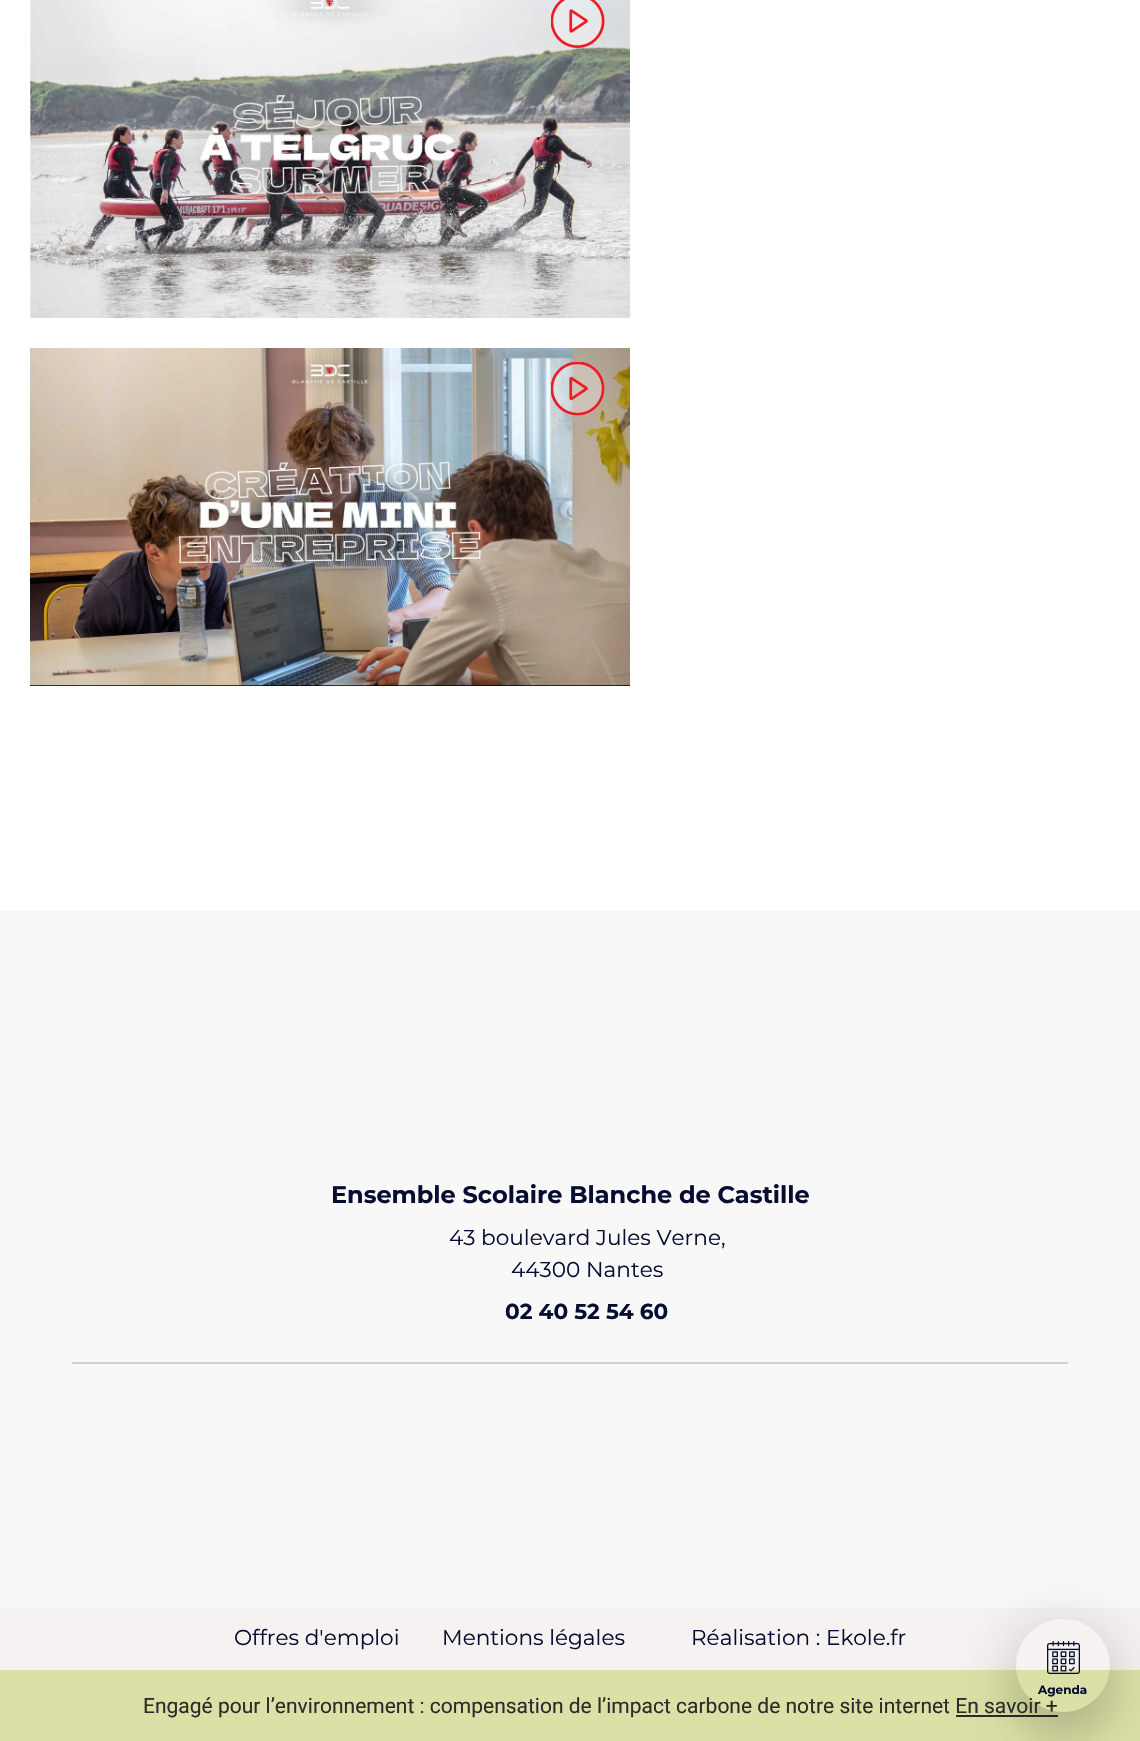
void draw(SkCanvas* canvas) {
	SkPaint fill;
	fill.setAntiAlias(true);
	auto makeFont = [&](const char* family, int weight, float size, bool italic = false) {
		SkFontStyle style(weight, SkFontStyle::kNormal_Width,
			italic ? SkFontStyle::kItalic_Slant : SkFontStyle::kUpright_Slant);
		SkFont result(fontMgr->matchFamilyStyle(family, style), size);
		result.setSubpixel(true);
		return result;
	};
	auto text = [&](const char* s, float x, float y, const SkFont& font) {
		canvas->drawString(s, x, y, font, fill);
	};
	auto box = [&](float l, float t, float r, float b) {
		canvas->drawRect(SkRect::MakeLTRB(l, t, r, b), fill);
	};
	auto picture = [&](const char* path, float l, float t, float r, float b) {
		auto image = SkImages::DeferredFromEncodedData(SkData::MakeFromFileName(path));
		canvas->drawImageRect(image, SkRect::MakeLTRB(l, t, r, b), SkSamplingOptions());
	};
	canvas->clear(0xFFFFFFFF);
	picture("image0.png", 30, 0, 630, 318);
	fill.setColor(0x4AFFFFFF);
	canvas->drawCircle(578, 21, 27, fill);
	picture("image1.png", 551, 0, 605, 48);
	fill.setColor(0xFF000000);
	box(30, 685, 630, 686);
	picture("image2.png", 30, 348, 630, 686);
	fill.setColor(0x4AFFFFFF);
	canvas->drawCircle(578, 389, 27, fill);
	picture("image3.png", 551, 362, 605, 416);
	fill.setColor(0xFFF8F8F8);
	box(0, 911, 1140, 1608);
	fill.setColor(0xFFD1D1D1);
	box(72, 1362, 1068, 1364);
	fill.setColor(0xFFF5F2F1);
	box(0, 1608, 1140, 1670);
	fill.setColor(0xFFDBE1A6);
	box(0, 1670, 1140, 1741);
	fill.setColor(0xFF2B2B2B);
	box(956, 1715, 1058, 1717);
	canvas->save();
	canvas->clipPath(SkPathBuilder(SkPathFillType::kEvenOdd).moveTo(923, 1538).lineTo(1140, 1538).lineTo(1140, 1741).lineTo(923, 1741).close().moveTo(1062.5f, 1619).lineTo(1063.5f, 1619).cubicTo(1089, 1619, 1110, 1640, 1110, 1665.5f).cubicTo(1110, 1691, 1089, 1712, 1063.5f, 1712).lineTo(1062.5f, 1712).cubicTo(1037, 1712, 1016, 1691, 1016, 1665.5f).cubicTo(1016, 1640, 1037, 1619, 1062.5f, 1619).close().detach(), true);
	fill.setColor(0x29000000);
	fill.setMaskFilter(SkMaskFilter::MakeBlur(kNormal_SkBlurStyle, 30));
	canvas->drawRoundRect(SkRect::MakeLTRB(1014, 1629, 1112, 1725), 48, 48, fill);
	fill.setMaskFilter(nullptr);
	canvas->restore();
	canvas->save();
	canvas->clipPath(SkPathBuilder(SkPathFillType::kEvenOdd).moveTo(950, 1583).lineTo(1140, 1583).lineTo(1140, 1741).lineTo(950, 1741).close().moveTo(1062.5f, 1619).lineTo(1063.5f, 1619).cubicTo(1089, 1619, 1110, 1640, 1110, 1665.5f).cubicTo(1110, 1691, 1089, 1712, 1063.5f, 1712).lineTo(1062.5f, 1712).cubicTo(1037, 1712, 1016, 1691, 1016, 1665.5f).cubicTo(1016, 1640, 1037, 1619, 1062.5f, 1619).close().detach(), true);
	fill.setColor(0x17000000);
	fill.setMaskFilter(SkMaskFilter::MakeBlur(kNormal_SkBlurStyle, 21));
	canvas->drawRoundRect(SkRect::MakeLTRB(1014, 1647, 1112, 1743), 48, 48, fill);
	fill.setMaskFilter(nullptr);
	canvas->restore();
	picture("image4.png", 1047, 1641, 1080, 1674);
	auto font1 = makeFont("Montserrat", 700, 24);
	fill.setColor(0xFF070D31);
	text("Ensemble Scolaire Blanche de Castille", 331, 1203, font1);
	auto font2 = makeFont("Montserrat", 400, 21.6f);
	text("43 boulevard Jules Verne,", 449, 1245, font2);
	text("44300 Nantes", 511, 1277, font2);
	auto font3 = makeFont("Montserrat", 700, 21.6f);
	text("02 40 52 54 60", 505, 1319, font3);
	auto font4 = makeFont("Montserrat", 700, 12);
	text("Agenda", 1038, 1694, font4);
	text("Offres d'emploi", 234, 1645, font2);
	text("Mentions légales", 442, 1645, font2);
	text("Réalisation : Ekole.fr", 691, 1645, font2);
	auto font5 = makeFont("Roboto", 400, 21);
	fill.setColor(0xFF2B2B2B);
	text("Engagé pour l’environnement : compensation de l’impact carbone de notre site internet En savoir +", 143, 1713, font5);
}
